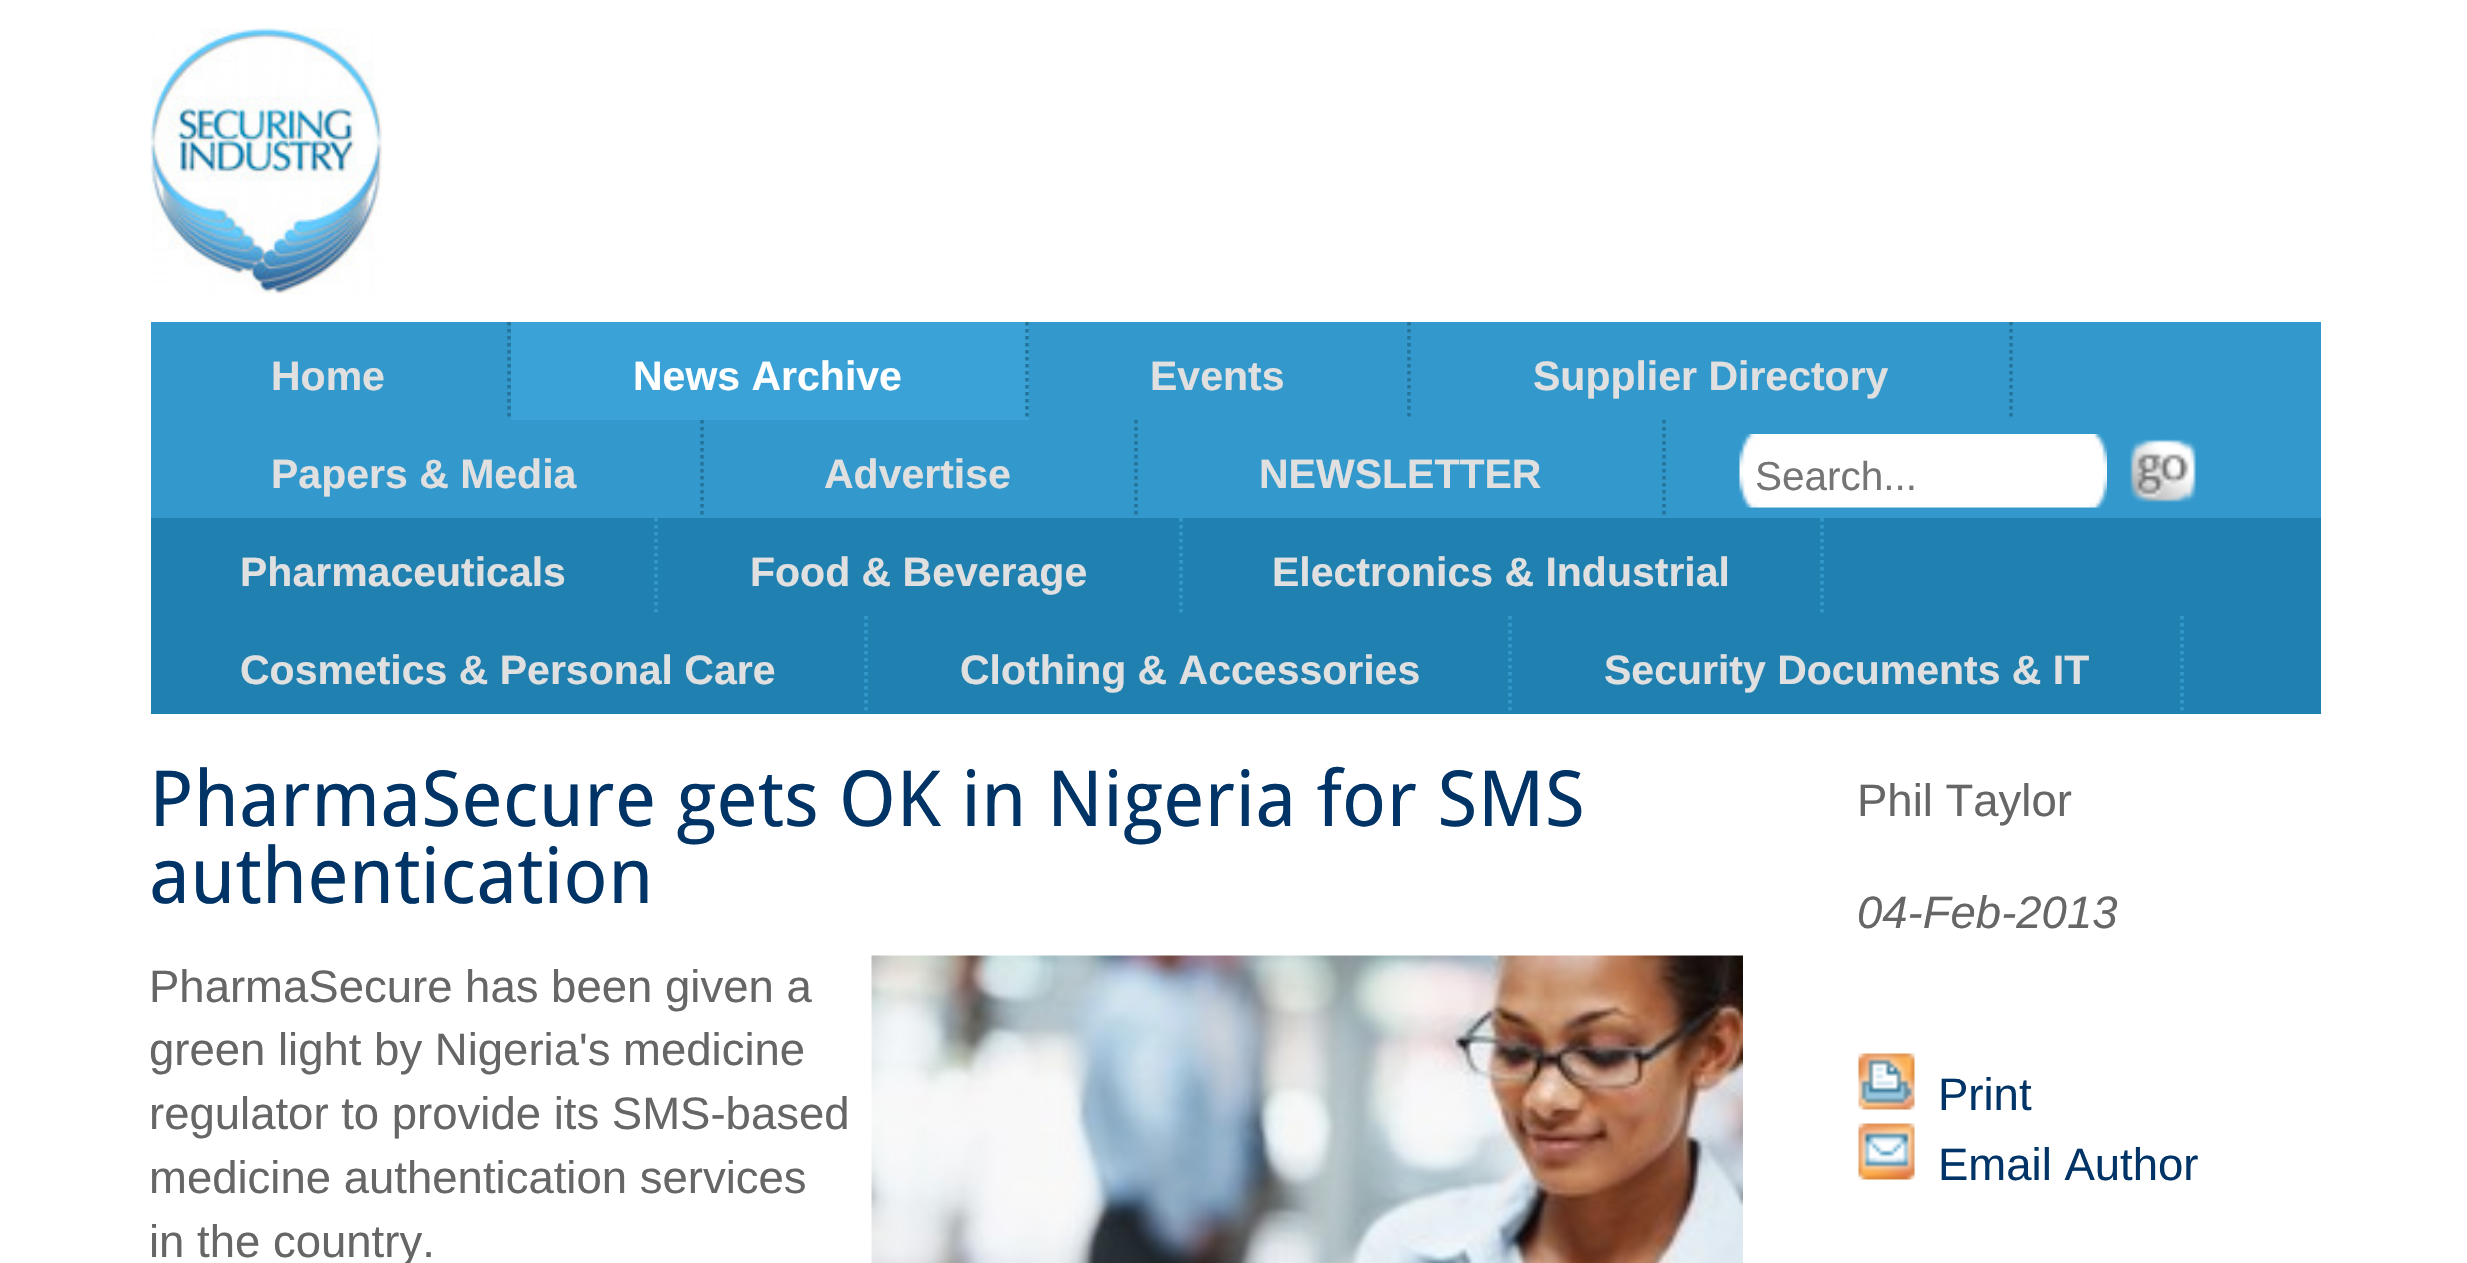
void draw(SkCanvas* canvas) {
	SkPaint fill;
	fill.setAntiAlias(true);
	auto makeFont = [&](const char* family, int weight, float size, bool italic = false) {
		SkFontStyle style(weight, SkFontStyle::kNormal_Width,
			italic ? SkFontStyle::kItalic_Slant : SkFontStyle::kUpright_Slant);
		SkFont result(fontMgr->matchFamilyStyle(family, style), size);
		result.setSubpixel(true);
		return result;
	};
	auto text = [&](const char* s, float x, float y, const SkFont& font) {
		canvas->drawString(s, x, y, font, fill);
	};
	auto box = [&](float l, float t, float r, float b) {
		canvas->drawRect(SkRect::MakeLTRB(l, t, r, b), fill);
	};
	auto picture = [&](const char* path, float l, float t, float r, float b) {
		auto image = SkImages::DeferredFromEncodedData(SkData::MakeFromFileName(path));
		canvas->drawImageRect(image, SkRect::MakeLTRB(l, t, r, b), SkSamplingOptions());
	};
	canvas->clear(0xFFFFFFFF);
	picture("image0.png", 150, 28, 382, 294);
	fill.setColor(0xFF3399CC);
	box(151, 322, 2321, 518);
	fill.setStyle(SkPaint::kStroke_Style);
	fill.setStrokeWidth(3.5f);
	fill.setColor(0xFF24739B);
	fill.setPathEffect(SkDashPathEffect::Make({{3.5f, 3.5f}}, 0));
	canvas->drawPath(SkPathBuilder().moveTo(509, 322).lineTo(509, 420).detach(), fill);
	fill.setPathEffect(nullptr);
	fill.setStyle(SkPaint::kFill_Style);
	fill.setColor(0xFF3AA2D7);
	box(511, 322, 1029, 420);
	fill.setStyle(SkPaint::kStroke_Style);
	fill.setColor(0xFF24739B);
	fill.setPathEffect(SkDashPathEffect::Make({{3.5f, 3.5f}}, 0));
	canvas->drawPath(SkPathBuilder().moveTo(1027, 322).lineTo(1027, 420).detach(), fill);
	fill.setPathEffect(nullptr);
	fill.setPathEffect(SkDashPathEffect::Make({{3.5f, 3.5f}}, 0));
	canvas->drawPath(SkPathBuilder().moveTo(1409, 322).lineTo(1409, 420).detach(), fill);
	fill.setPathEffect(nullptr);
	fill.setPathEffect(SkDashPathEffect::Make({{3.5f, 3.5f}}, 0));
	canvas->drawPath(SkPathBuilder().moveTo(2011, 322).lineTo(2011, 420).detach(), fill);
	fill.setPathEffect(nullptr);
	fill.setPathEffect(SkDashPathEffect::Make({{3.5f, 3.5f}}, 0));
	canvas->drawPath(SkPathBuilder().moveTo(702, 420).lineTo(702, 518).detach(), fill);
	fill.setPathEffect(nullptr);
	fill.setPathEffect(SkDashPathEffect::Make({{3.5f, 3.5f}}, 0));
	canvas->drawPath(SkPathBuilder().moveTo(1136, 420).lineTo(1136, 518).detach(), fill);
	fill.setPathEffect(nullptr);
	fill.setPathEffect(SkDashPathEffect::Make({{3.5f, 3.5f}}, 0));
	canvas->drawPath(SkPathBuilder().moveTo(1664, 420).lineTo(1664, 518).detach(), fill);
	fill.setPathEffect(nullptr);
	picture("image1.png", 1739, 434, 2107, 508);
	picture("image2.png", 2130, 439, 2196, 502);
	fill.setStyle(SkPaint::kFill_Style);
	fill.setColor(0xFF2080B0);
	box(151, 518, 2321, 714);
	fill.setStyle(SkPaint::kStroke_Style);
	fill.setColor(0xFF3399CC);
	fill.setPathEffect(SkDashPathEffect::Make({{3.5f, 3.5f}}, 0));
	canvas->drawPath(SkPathBuilder().moveTo(656, 518).lineTo(656, 616).detach(), fill);
	fill.setPathEffect(nullptr);
	fill.setPathEffect(SkDashPathEffect::Make({{3.5f, 3.5f}}, 0));
	canvas->drawPath(SkPathBuilder().moveTo(1181, 518).lineTo(1181, 616).detach(), fill);
	fill.setPathEffect(nullptr);
	fill.setPathEffect(SkDashPathEffect::Make({{3.5f, 3.5f}}, 0));
	canvas->drawPath(SkPathBuilder().moveTo(1822, 518).lineTo(1822, 616).detach(), fill);
	fill.setPathEffect(nullptr);
	fill.setPathEffect(SkDashPathEffect::Make({{3.5f, 3.5f}}, 0));
	canvas->drawPath(SkPathBuilder().moveTo(866, 616).lineTo(866, 714).detach(), fill);
	fill.setPathEffect(nullptr);
	fill.setPathEffect(SkDashPathEffect::Make({{3.5f, 3.5f}}, 0));
	canvas->drawPath(SkPathBuilder().moveTo(1510, 616).lineTo(1510, 714).detach(), fill);
	fill.setPathEffect(nullptr);
	fill.setPathEffect(SkDashPathEffect::Make({{3.5f, 3.5f}}, 0));
	canvas->drawPath(SkPathBuilder().moveTo(2182, 616).lineTo(2182, 714).detach(), fill);
	fill.setPathEffect(nullptr);
	picture("image3.png", 871, 955, 1743, 1263);
	picture("image4.png", 1858, 1053, 1915, 1110);
	picture("image5.png", 1858, 1123, 1915, 1180);
	auto font1 = makeFont("Liberation Sans", 700, 41);
	fill.setStyle(SkPaint::kFill_Style);
	fill.setColor(0xFFE0E0E0);
	text("Home", 271, 390, font1);
	fill.setColor(0xFFFFFFFF);
	text("News Archive", 633, 390, font1);
	fill.setColor(0xFFE0E0E0);
	text("Events", 1150, 390, font1);
	text("Supplier Directory", 1533, 390, font1);
	text("Papers & Media", 271, 488, font1);
	text("Advertise", 824, 488, font1);
	text("NEWSLETTER", 1259, 488, font1);
	auto font2 = makeFont("Liberation Sans", 400, 40.5f);
	fill.setColor(0xFF757575);
	text("Search...", 1755, 490, font2);
	fill.setColor(0xFFE0E0E0);
	text("Pharmaceuticals", 240, 586, font1);
	text("Food & Beverage", 750, 586, font1);
	text("Electronics & Industrial", 1272, 586, font1);
	text("Cosmetics & Personal Care", 240, 684, font1);
	text("Clothing & Accessories", 960, 684, font1);
	text("Security Documents & IT", 1604, 684, font1);
	auto font3 = makeFont("Droid Sans", 400, 77.3f);
	fill.setColor(0xFF003366);
	text("PharmaSecure gets OK in Nigeria for SMS", 149, 826, font3);
	text("authentication", 149, 903, font3);
	auto font4 = makeFont("Liberation Sans", 400, 45.5f);
	fill.setColor(0xFF666666);
	text("PharmaSecure has been given a", 149, 1002, font4);
	text("green light by Nigeria's medicine", 149, 1065, font4);
	text("regulator to provide its SMS-based", 149, 1129, font4);
	text("medicine authentication services", 149, 1193, font4);
	text("in the country.", 149, 1257, font4);
	text("Phil Taylor", 1857, 816, font4);
	auto font5 = makeFont("Liberation Sans", 400, 45.5f, true);
	text("04-Feb-2013", 1857, 928, font5);
	fill.setColor(0xFF003366);
	text("Print", 1938, 1110, font4);
	text("Email Author", 1938, 1180, font4);
}
